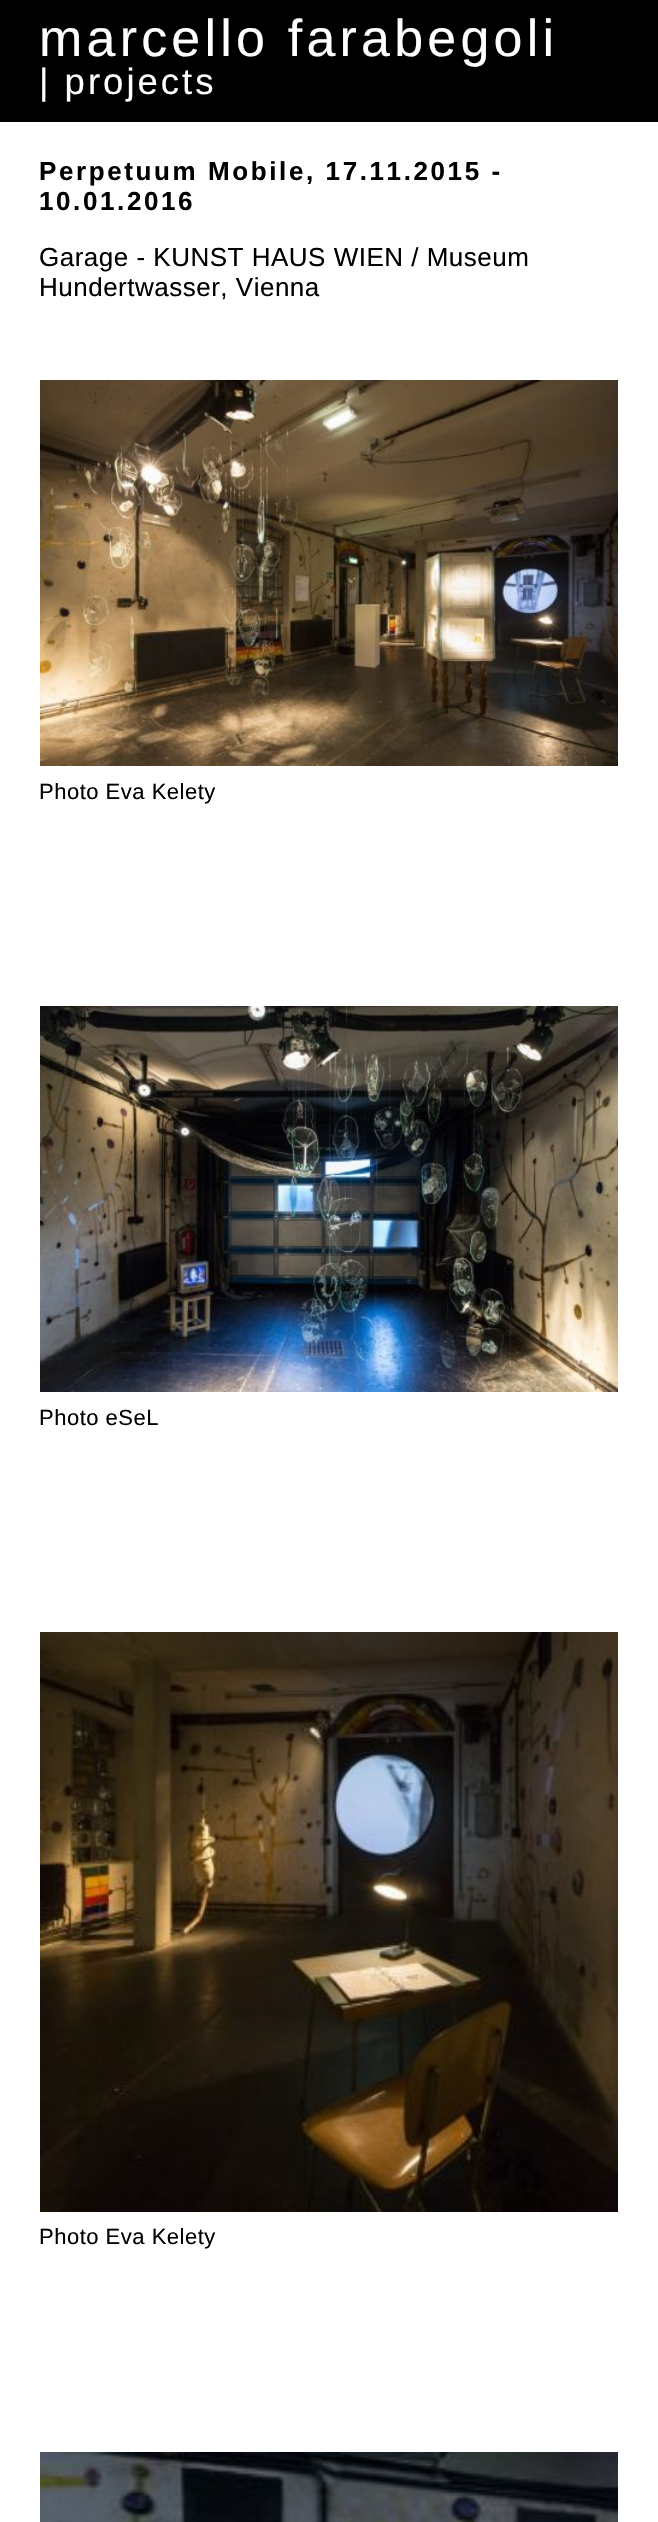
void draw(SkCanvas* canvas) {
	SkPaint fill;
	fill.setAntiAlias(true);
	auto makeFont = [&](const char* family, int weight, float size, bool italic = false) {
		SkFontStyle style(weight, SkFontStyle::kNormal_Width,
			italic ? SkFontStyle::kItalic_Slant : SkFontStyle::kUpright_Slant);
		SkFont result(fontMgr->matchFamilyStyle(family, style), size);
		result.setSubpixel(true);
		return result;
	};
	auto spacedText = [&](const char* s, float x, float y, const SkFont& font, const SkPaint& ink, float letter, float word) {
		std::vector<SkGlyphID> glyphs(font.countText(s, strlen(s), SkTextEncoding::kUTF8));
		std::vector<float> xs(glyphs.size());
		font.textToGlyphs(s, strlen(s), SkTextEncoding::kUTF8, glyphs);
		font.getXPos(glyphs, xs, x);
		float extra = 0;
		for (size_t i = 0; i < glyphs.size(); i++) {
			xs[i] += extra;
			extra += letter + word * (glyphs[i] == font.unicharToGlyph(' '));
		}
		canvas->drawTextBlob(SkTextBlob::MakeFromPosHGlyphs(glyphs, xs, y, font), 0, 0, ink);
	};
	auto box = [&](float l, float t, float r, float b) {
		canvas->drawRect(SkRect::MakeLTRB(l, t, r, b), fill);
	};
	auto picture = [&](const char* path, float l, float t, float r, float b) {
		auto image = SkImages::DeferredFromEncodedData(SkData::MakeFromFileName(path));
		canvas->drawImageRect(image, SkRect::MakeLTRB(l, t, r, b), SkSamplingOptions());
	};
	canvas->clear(0xFFFFFFFF);
	fill.setColor(0xFF000000);
	box(0, 0, 658, 122);
	picture("image0.png", 40, 380, 618, 766);
	picture("image1.png", 40, 1006, 618, 1392);
	picture("image2.png", 40, 1632, 618, 2212);
	picture("image3.png", 40, 2452, 618, 2522);
	auto font1 = makeFont("Liberation Sans", 400, 52);
	fill.setColor(0xFFFFFFFF);
	spacedText("marcello farabegoli", 39, 56, font1, fill, 4.2f, 0);
	auto font2 = makeFont("Liberation Sans", 400, 36.5f);
	spacedText("| projects", 39, 94, font2, fill, 3, 0);
	auto font3 = makeFont("Liberation Sans", 700, 26);
	fill.setColor(0xFF000000);
	spacedText("Perpetuum Mobile, 17.11.2015 -", 39, 180, font3, fill, 2.6f, 0);
	spacedText("10.01.2016", 39, 210, font3, fill, 2.6f, 0);
	auto font4 = makeFont("Liberation Sans", 400, 26);
	spacedText("Garage - KUNST HAUS WIEN / Museum", 39, 266, font4, fill, 0.5f, 0);
	spacedText("Hundertwasser, Vienna", 39, 296, font4, fill, 0.5f, 0);
	auto font5 = makeFont("Liberation Sans", 400, 22);
	spacedText("Photo Eva Kelety", 39, 799, font5, fill, 0.5f, 0);
	spacedText("Photo eSeL", 39, 1425, font5, fill, 0.5f, 0);
	spacedText("Photo Eva Kelety", 39, 2244, font5, fill, 0.5f, 0);
}
